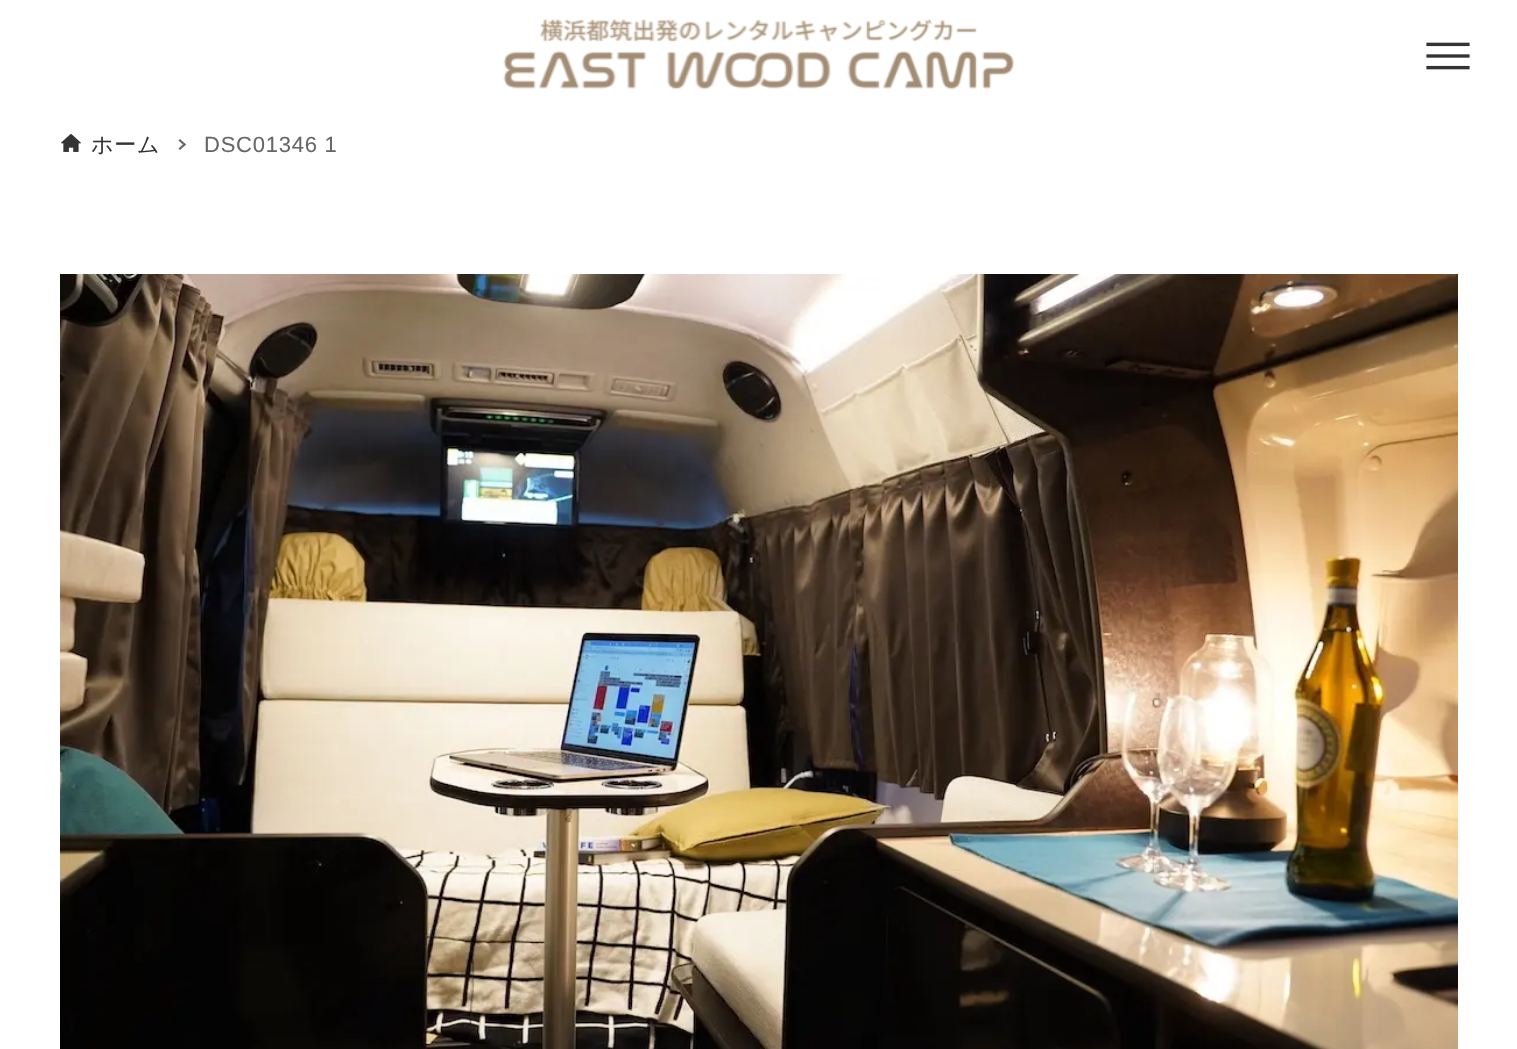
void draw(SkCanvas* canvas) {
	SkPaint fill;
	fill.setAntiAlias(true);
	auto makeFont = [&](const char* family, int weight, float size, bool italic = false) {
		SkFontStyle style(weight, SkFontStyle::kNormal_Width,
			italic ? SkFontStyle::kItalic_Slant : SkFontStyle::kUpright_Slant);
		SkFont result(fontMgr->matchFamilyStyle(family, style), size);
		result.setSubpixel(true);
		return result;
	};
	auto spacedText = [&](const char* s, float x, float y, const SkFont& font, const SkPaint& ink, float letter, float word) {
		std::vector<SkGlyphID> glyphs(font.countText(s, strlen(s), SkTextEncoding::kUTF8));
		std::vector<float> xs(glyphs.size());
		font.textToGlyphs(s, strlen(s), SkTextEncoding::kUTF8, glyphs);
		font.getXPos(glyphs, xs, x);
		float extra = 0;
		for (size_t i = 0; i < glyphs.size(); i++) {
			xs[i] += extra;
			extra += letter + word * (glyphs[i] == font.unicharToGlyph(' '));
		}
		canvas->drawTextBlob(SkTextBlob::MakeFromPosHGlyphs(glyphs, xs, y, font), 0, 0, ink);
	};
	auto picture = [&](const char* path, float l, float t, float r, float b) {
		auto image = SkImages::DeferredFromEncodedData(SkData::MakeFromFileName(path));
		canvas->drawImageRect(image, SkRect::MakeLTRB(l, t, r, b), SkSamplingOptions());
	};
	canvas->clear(0xFFFFFFFF);
	picture("image0.png", 503, 18, 1015, 90);
	picture("image1.png", 1426, 42, 1470, 70);
	picture("image2.png", 61, 134, 81, 152);
	fill.setColor(0xFF666666);
	canvas->drawPath(SkPathBuilder().moveTo(180, 139).lineTo(186, 144.5f).lineTo(184.5f, 146).lineTo(178.5f, 140.5f).close().detach(), fill);
	canvas->drawPath(SkPathBuilder().moveTo(184.5f, 143).lineTo(186, 144.5f).lineTo(180, 150).lineTo(178.5f, 148.5f).close().detach(), fill);
	picture("image3.png", 60, 274, 1458, 1049);
	auto font1 = makeFont("WenQuanYi Zen Hei", 500, 22);
	fill.setColor(0xFF333333);
	spacedText("ホーム", 91, 152, font1, fill, 0.75f, 0);
	auto font2 = makeFont("Liberation Sans", 400, 22);
	fill.setColor(0xFF666666);
	spacedText("DSC01346 1", 204, 152, font2, fill, 0.75f, 0);
}
